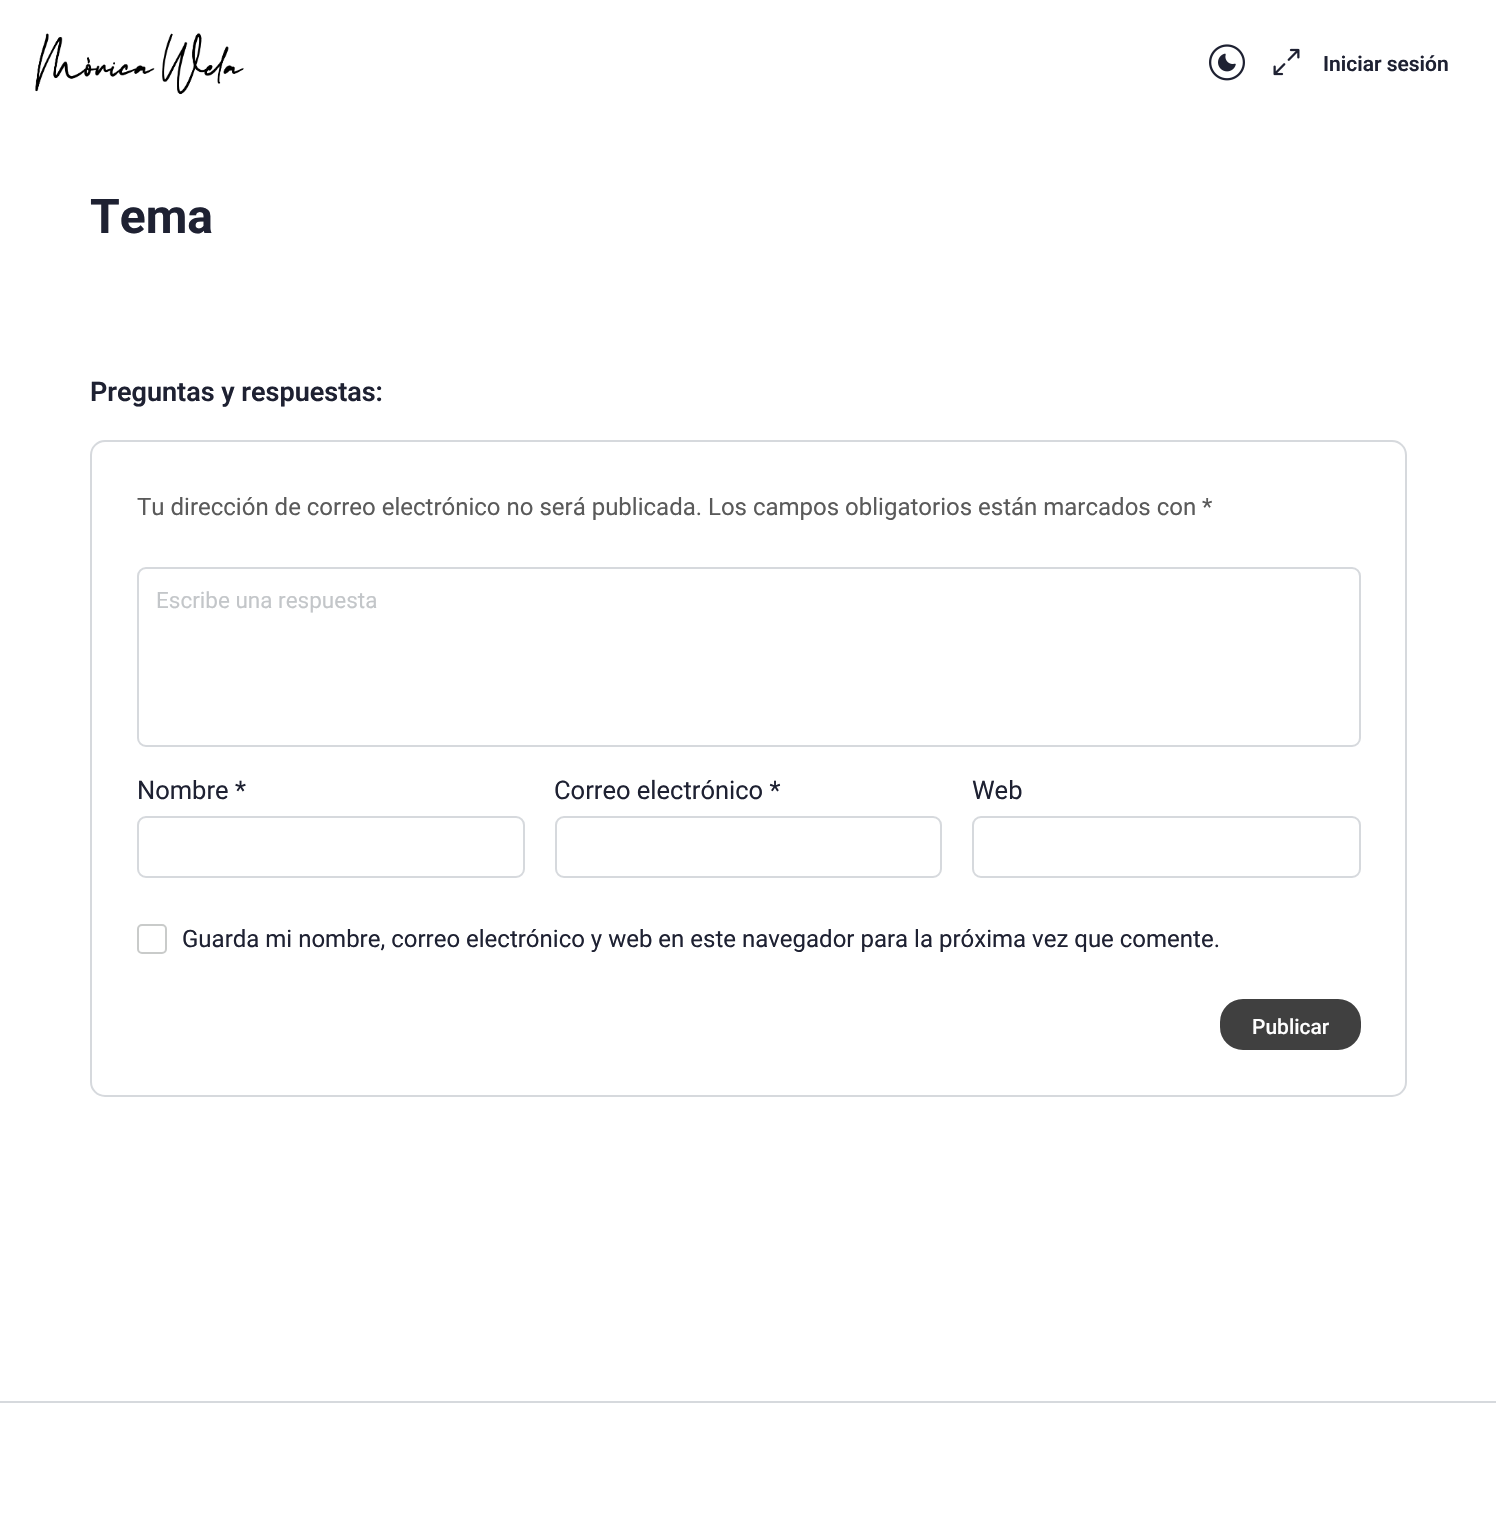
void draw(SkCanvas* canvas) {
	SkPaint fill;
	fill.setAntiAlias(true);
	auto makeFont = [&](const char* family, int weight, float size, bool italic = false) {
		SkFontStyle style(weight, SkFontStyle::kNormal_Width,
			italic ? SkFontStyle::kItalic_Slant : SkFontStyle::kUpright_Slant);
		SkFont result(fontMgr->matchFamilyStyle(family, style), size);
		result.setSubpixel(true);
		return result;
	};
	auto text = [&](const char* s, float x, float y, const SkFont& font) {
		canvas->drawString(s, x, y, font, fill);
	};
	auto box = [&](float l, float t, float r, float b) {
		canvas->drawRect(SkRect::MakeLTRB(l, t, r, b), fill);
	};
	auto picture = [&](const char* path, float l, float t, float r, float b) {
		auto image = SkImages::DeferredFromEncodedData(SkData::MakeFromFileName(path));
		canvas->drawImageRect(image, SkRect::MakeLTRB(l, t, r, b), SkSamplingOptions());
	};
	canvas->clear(0xFFFFFFFF);
	picture("image0.png", 35, 33, 244, 95);
	picture("image1.png", 1209, 44, 1245, 81);
	picture("image2.png", 1273, 48, 1300, 76);
	fill.setColor(0xFFD6D9DD);
	box(0, 1401, 1496, 1403);
	fill.setStyle(SkPaint::kStroke_Style);
	fill.setStrokeWidth(2);
	canvas->drawRoundRect(SkRect::MakeLTRB(91, 441, 1406, 1096), 14, 14, fill);
	canvas->drawRoundRect(SkRect::MakeLTRB(138, 568, 1360, 746), 8, 8, fill);
	canvas->drawRoundRect(SkRect::MakeLTRB(138, 817, 524, 877), 8, 8, fill);
	canvas->drawRoundRect(SkRect::MakeLTRB(556, 817, 941, 877), 8, 8, fill);
	canvas->drawRoundRect(SkRect::MakeLTRB(973, 817, 1360, 877), 8, 8, fill);
	fill.setColor(0xFFC9CBCA);
	canvas->drawRoundRect(SkRect::MakeLTRB(138, 925, 166, 953), 4, 4, fill);
	fill.setStyle(SkPaint::kFill_Style);
	fill.setColor(0xFF404040);
	canvas->drawRoundRect(SkRect::MakeLTRB(1221, 1000, 1360, 1049), 22, 22, fill);
	fill.setStyle(SkPaint::kStroke_Style);
	canvas->drawRoundRect(SkRect::MakeLTRB(1221, 1000, 1360, 1049), 22, 22, fill);
	auto font1 = makeFont("Roboto", 600, 21);
	fill.setStyle(SkPaint::kFill_Style);
	fill.setColor(0xFF1E2132);
	text("Iniciar sesión", 1323, 71, font1);
	auto font2 = makeFont("Roboto", 700, 48);
	text("Tema", 90, 233, font2);
	auto font3 = makeFont("Roboto", 600, 27);
	text("Preguntas y respuestas:", 90, 401, font3);
	auto font4 = makeFont("Roboto", 400, 24);
	fill.setColor(0xFF5A5A5A);
	text("Tu dirección de correo electrónico no será publicada. Los campos obligatorios están marcados con *", 137, 515, font4);
	auto font5 = makeFont("Roboto", 400, 22.5f);
	fill.setColor(0xFFC3C6C9);
	text("Escribe una respuesta", 156, 608, font5);
	auto font6 = makeFont("Roboto", 400, 25.5f);
	fill.setColor(0xFF1E2132);
	text("Nombre *", 137, 799, font6);
	text("Correo electrónico *", 554, 799, font6);
	text("Web", 972, 799, font6);
	text("Guarda mi nombre, correo electrónico y web en este navegador para la próxima vez que comente.", 182, 947, font4);
	auto font7 = makeFont("Roboto", 500, 21);
	fill.setColor(0xFFFFFFFF);
	text("Publicar", 1252, 1034, font7);
}
